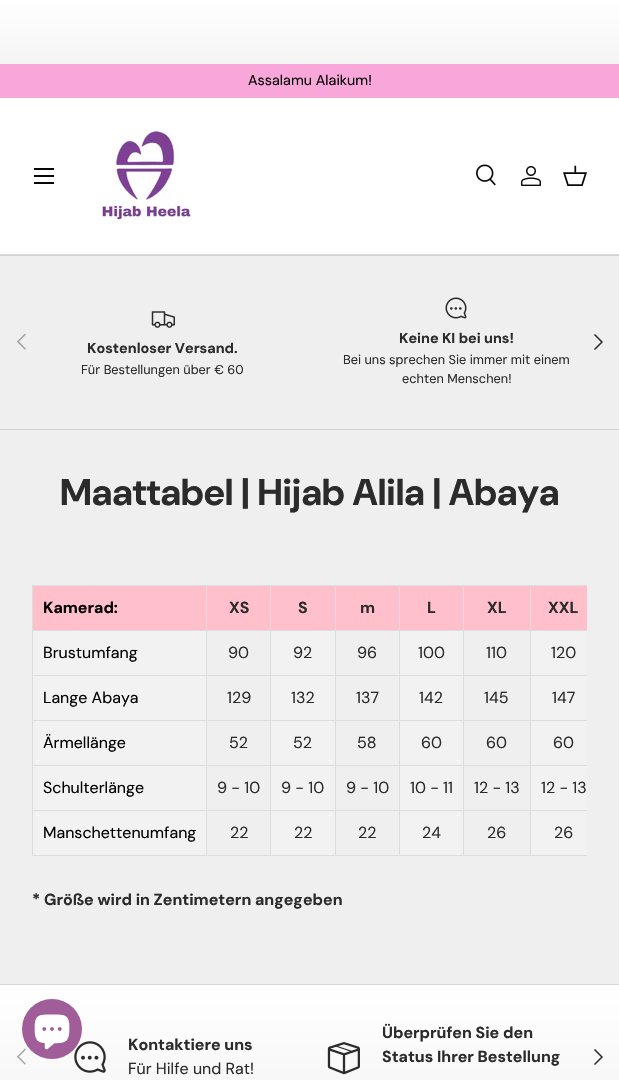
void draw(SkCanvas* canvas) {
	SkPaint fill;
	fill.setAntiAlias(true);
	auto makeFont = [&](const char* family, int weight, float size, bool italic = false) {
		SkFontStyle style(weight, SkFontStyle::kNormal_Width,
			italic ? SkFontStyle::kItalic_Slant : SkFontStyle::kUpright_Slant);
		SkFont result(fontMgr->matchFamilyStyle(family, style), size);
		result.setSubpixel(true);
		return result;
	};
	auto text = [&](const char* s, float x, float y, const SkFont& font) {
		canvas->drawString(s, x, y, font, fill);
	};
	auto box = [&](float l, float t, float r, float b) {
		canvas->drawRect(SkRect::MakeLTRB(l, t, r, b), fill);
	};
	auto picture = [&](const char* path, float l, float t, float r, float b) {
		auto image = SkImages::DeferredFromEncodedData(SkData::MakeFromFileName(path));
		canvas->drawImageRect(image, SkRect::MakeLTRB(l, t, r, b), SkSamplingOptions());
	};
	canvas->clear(0xFFEFEFEF);
	{
		const SkColor colors[] = {0xFFFFFFFF, 0xFFF4F4F4};
		const float stops[] = {0, 1};
		const SkPoint ends[] = {{310, 0}, {310, 64}};
		fill.setShader(SkGradientShader::MakeLinear(ends, colors, stops, 2, SkTileMode::kClamp));
		fill.setAlpha(255);
	}
	box(0, 0, 619, 64);
	fill.setShader(nullptr);
	fill.setColor(0xFFF9A6DA);
	box(0, 64, 619, 98);
	fill.setColor(0xFFFFFFFF);
	box(0, 98, 619, 254);
	fill.setColor(0xFFDADADA);
	box(0, 254, 619, 255);
	fill.setColor(0xFF070707);
	box(34, 168, 54, 170);
	box(34, 182, 54, 184);
	box(34, 175, 54, 177);
	picture("image0.png", 100, 130, 192, 222);
	picture("image1.png", 476, 164, 496, 186);
	picture("image2.png", 521, 166, 541, 186);
	picture("image3.png", 563, 165, 587, 186);
	fill.setColor(0xFFD1D2D1);
	box(0, 255, 619, 256);
	box(0, 429, 619, 430);
	picture("image4.png", 151, 311, 175, 328);
	picture("image5.png", 445, 297, 467, 319);
	picture("image6.png", 17, 333, 26, 350);
	fill.setStyle(SkPaint::kStroke_Style);
	fill.setStrokeWidth(1.5f);
	fill.setColor(0xFF2A2B2A);
	canvas->drawPath(SkPathBuilder().moveTo(594.5f, 334.5f).lineTo(602, 342).lineTo(594.5f, 349.5f).detach(), fill);
	fill.setStyle(SkPaint::kFill_Style);
	fill.setColor(0xFFFFC0CB);
	box(33, 586, 206, 630);
	fill.setColor(0xFFDDDDDD);
	box(530, 585, 587, 586);
	box(530, 630, 587, 631);
	box(530, 675, 587, 676);
	box(530, 720, 587, 721);
	box(530, 765, 587, 766);
	box(530, 810, 587, 811);
	box(530, 855, 587, 856);
	box(530, 810, 531, 856);
	box(463, 810, 531, 811);
	box(530, 765, 531, 811);
	box(463, 765, 531, 766);
	box(530, 720, 531, 766);
	box(463, 720, 531, 721);
	box(530, 675, 531, 721);
	box(463, 675, 531, 676);
	box(530, 630, 531, 676);
	box(463, 630, 531, 631);
	box(530, 585, 531, 631);
	box(463, 585, 531, 586);
	box(463, 855, 531, 856);
	box(463, 810, 464, 856);
	box(399, 810, 464, 811);
	box(463, 765, 464, 811);
	box(399, 765, 464, 766);
	box(463, 720, 464, 766);
	box(399, 720, 464, 721);
	box(463, 675, 464, 721);
	box(399, 675, 464, 676);
	box(463, 630, 464, 676);
	box(399, 630, 464, 631);
	box(463, 585, 464, 631);
	box(399, 585, 464, 586);
	box(399, 855, 464, 856);
	box(399, 810, 400, 856);
	box(335, 810, 400, 811);
	box(399, 765, 400, 811);
	box(335, 765, 400, 766);
	box(399, 720, 400, 766);
	box(335, 720, 400, 721);
	box(399, 675, 400, 721);
	box(335, 675, 400, 676);
	box(399, 630, 400, 676);
	box(335, 630, 400, 631);
	box(399, 585, 400, 631);
	box(335, 585, 400, 586);
	box(335, 855, 400, 856);
	box(335, 810, 336, 856);
	box(270, 810, 336, 811);
	box(335, 765, 336, 811);
	box(270, 765, 336, 766);
	box(335, 720, 336, 766);
	box(270, 720, 336, 721);
	box(335, 675, 336, 721);
	box(270, 675, 336, 676);
	box(335, 630, 336, 676);
	box(270, 630, 336, 631);
	box(335, 585, 336, 631);
	box(270, 585, 336, 586);
	box(270, 855, 336, 856);
	box(270, 810, 271, 856);
	box(206, 810, 271, 811);
	box(270, 765, 271, 811);
	box(206, 765, 271, 766);
	box(270, 720, 271, 766);
	box(206, 720, 271, 721);
	box(270, 675, 271, 721);
	box(206, 675, 271, 676);
	box(270, 630, 271, 676);
	box(206, 630, 271, 631);
	box(270, 585, 271, 631);
	box(206, 585, 271, 586);
	box(206, 855, 271, 856);
	box(206, 810, 207, 856);
	box(32, 810, 207, 811);
	box(206, 765, 207, 811);
	box(32, 765, 207, 766);
	box(206, 720, 207, 766);
	box(32, 720, 207, 721);
	box(206, 675, 207, 721);
	box(32, 675, 207, 676);
	box(206, 630, 207, 676);
	box(32, 630, 207, 631);
	box(206, 585, 207, 631);
	box(32, 585, 207, 586);
	box(32, 855, 207, 856);
	box(32, 810, 33, 856);
	box(32, 765, 33, 811);
	box(32, 720, 33, 766);
	box(32, 675, 33, 721);
	box(32, 630, 33, 676);
	box(32, 585, 33, 631);
	fill.setColor(0xFFFFC0CB);
	box(207, 586, 270, 630);
	box(271, 586, 335, 630);
	box(336, 586, 399, 630);
	box(400, 586, 463, 630);
	box(464, 586, 530, 630);
	box(531, 586, 587, 630);
	fill.setColor(0xFFF2F2F2);
	box(33, 631, 206, 675);
	box(271, 631, 335, 675);
	box(400, 631, 463, 675);
	box(531, 631, 587, 675);
	box(33, 676, 206, 720);
	box(271, 676, 335, 720);
	box(400, 676, 463, 720);
	box(531, 676, 587, 720);
	box(33, 721, 206, 765);
	box(271, 721, 335, 765);
	box(400, 721, 463, 765);
	box(531, 721, 587, 765);
	box(33, 766, 206, 810);
	box(271, 766, 335, 810);
	box(400, 766, 463, 810);
	box(531, 766, 587, 810);
	box(33, 811, 206, 855);
	box(271, 811, 335, 855);
	box(400, 811, 463, 855);
	box(531, 811, 587, 855);
	{
		const SkColor colors[] = {0xFFFFFFFF, 0xFFF4F4F4};
		const float stops[] = {0, 1};
		const SkPoint ends[] = {{310, 985}, {310, 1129}};
		fill.setShader(SkGradientShader::MakeLinear(ends, colors, stops, 2, SkTileMode::kClamp));
		fill.setAlpha(255);
	}
	box(0, 985, 619, 1080);
	picture("image8.png", 74, 1041, 106, 1073);
	picture("image10.png", 17, 1048, 26, 1065);
	fill.setShader(nullptr);
	fill.setColor(0xFFA05D9A);
	canvas->drawCircle(52, 1029, 30, fill);
	picture("image7.png", 34, 1014, 70, 1050);
	fill.setColor(0xFFD6D6D6);
	box(0, 984, 619, 985);
	picture("image9.png", 327, 1042, 360, 1075);
	fill.setStyle(SkPaint::kStroke_Style);
	fill.setColor(0xFF2A2B2A);
	canvas->drawPath(SkPathBuilder().moveTo(594.5f, 1049.5f).lineTo(602, 1057).lineTo(594.5f, 1064.5f).detach(), fill);
	auto font1 = makeFont("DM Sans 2", 400, 14.4f);
	fill.setStyle(SkPaint::kFill_Style);
	fill.setColor(0xFF000000);
	text("Assalamu Alaikum!", 248, 85, font1);
	auto font2 = makeFont("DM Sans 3", 700, 14.4f);
	fill.setColor(0xFF2A2B2A);
	text("Kostenloser Versand.", 87, 353, font2);
	auto font3 = makeFont("DM Sans 3", 400, 12.75f);
	text("Für Bestellungen über € 60", 81, 374, font3);
	text("Keine KI bei uns!", 399, 343, font2);
	text("Bei uns sprechen Sie immer mit einem", 343, 364, font3);
	text("echten Menschen!", 402, 383, font3);
	auto font4 = makeFont("DM Sans", 700, 37.25f);
	text("Maattabel | Hijab Alila | Abaya", 60, 505, font4);
	auto font5 = makeFont("DM Sans 2", 700, 16);
	fill.setColor(0xFF000000);
	text("Kamerad:", 43, 613, font5);
	fill.setColor(0xFF2A2B2A);
	text("XS", 229, 613, font5);
	text("S", 298, 613, font5);
	text("m", 360, 613, font5);
	text("L", 427, 613, font5);
	text("XL", 487, 613, font5);
	text("XXL", 548, 613, font5);
	auto font6 = makeFont("DM Sans", 400, 16);
	fill.setColor(0xFF000000);
	text("Brustumfang", 43, 658, font6);
	fill.setColor(0xFF2A2B2A);
	text("90", 228, 658, font6);
	text("92", 293, 658, font6);
	text("96", 357, 658, font6);
	text("100", 418, 658, font6);
	text("110", 486, 658, font6);
	text("120", 551, 658, font6);
	fill.setColor(0xFF000000);
	text("Lange Abaya", 43, 703, font6);
	fill.setColor(0xFF2A2B2A);
	text("129", 227, 703, font6);
	text("132", 291, 703, font6);
	text("137", 356, 703, font6);
	text("142", 419, 703, font6);
	text("145", 484, 703, font6);
	text("147", 552, 703, font6);
	fill.setColor(0xFF000000);
	text("Ärmellänge", 43, 748, font6);
	fill.setColor(0xFF2A2B2A);
	text("52", 229, 748, font6);
	text("52", 293, 748, font6);
	text("58", 357, 748, font6);
	text("60", 421, 748, font6);
	text("60", 486, 748, font6);
	text("60", 553, 748, font6);
	fill.setColor(0xFF000000);
	text("Schulterlänge", 43, 793, font6);
	fill.setColor(0xFF2A2B2A);
	text("9 - 10", 217, 793, font6);
	text("9 - 10", 281, 793, font6);
	text("9 - 10", 346, 793, font6);
	text("10 - 11", 410, 793, font6);
	text("12 - 13", 474, 793, font6);
	text("12 - 13", 541, 793, font6);
	fill.setColor(0xFF000000);
	text("Manschettenumfang", 43, 838, font6);
	fill.setColor(0xFF2A2B2A);
	text("22", 230, 838, font6);
	text("22", 294, 838, font6);
	text("22", 358, 838, font6);
	text("24", 422, 838, font6);
	text("26", 487, 838, font6);
	text("26", 554, 838, font6);
	text("* Größe wird in Zentimetern angegeben", 32, 905, font5);
	text("Kontaktiere uns", 128, 1050, font5);
	text("Für Hilfe und Rat!", 128, 1074, font6);
	text("Überprüfen Sie den", 382, 1038, font5);
	text("Status Ihrer Bestellung", 382, 1062, font5);
}
